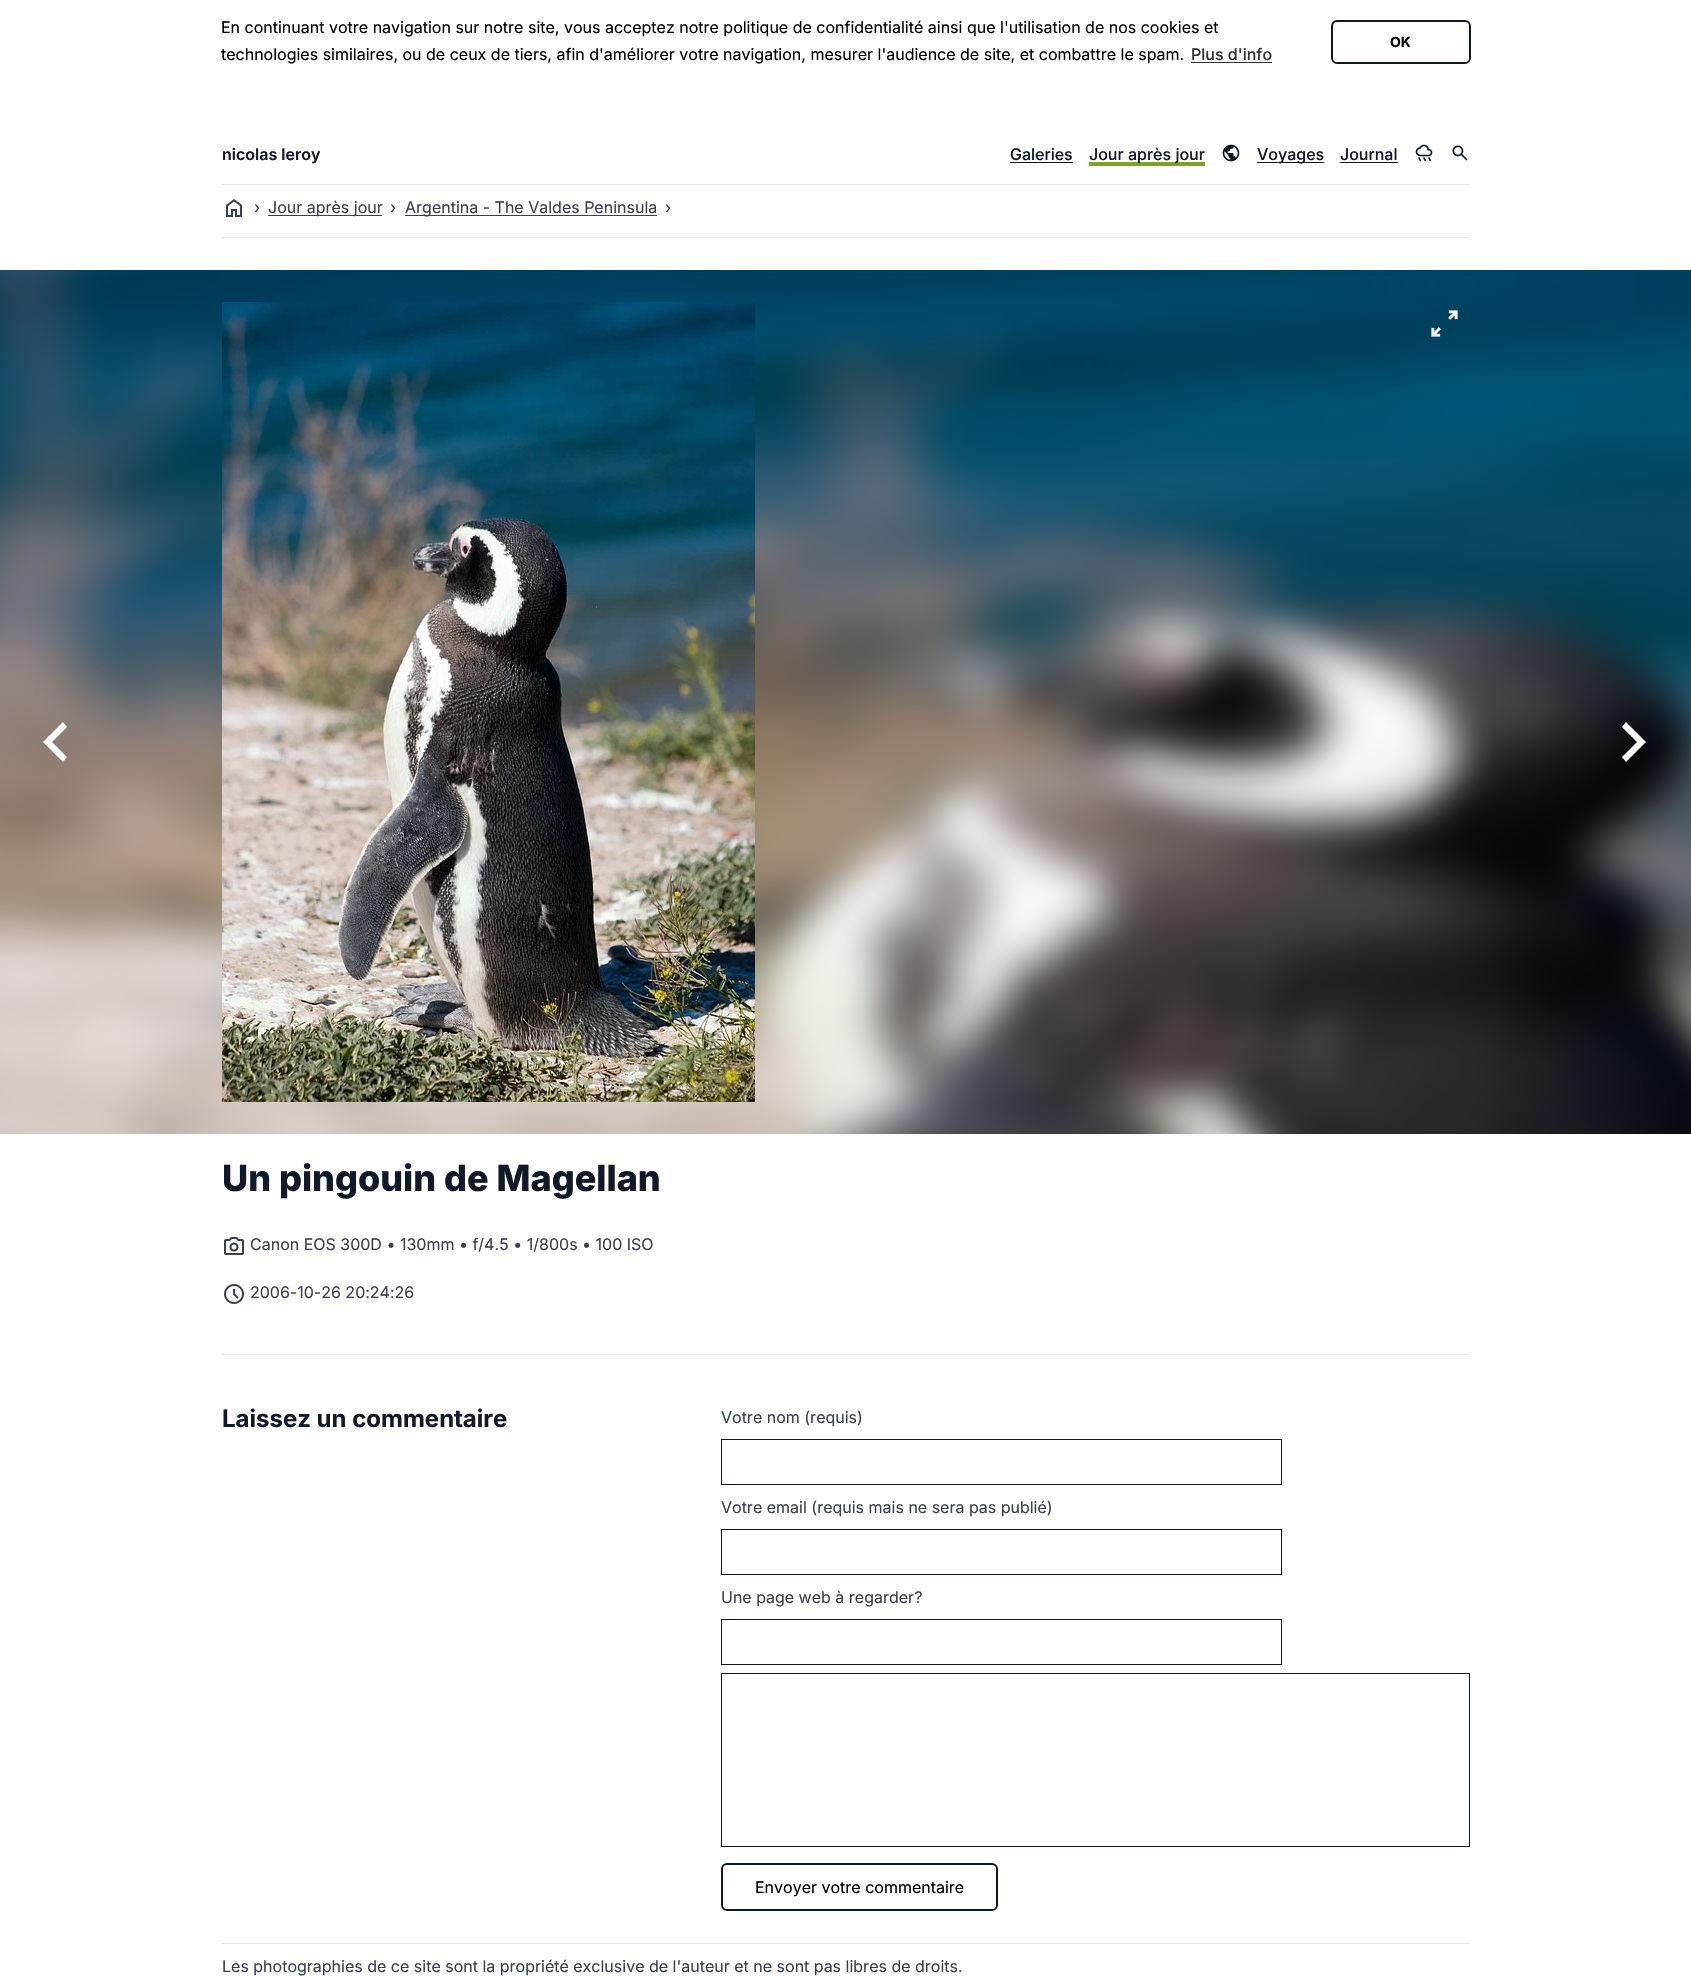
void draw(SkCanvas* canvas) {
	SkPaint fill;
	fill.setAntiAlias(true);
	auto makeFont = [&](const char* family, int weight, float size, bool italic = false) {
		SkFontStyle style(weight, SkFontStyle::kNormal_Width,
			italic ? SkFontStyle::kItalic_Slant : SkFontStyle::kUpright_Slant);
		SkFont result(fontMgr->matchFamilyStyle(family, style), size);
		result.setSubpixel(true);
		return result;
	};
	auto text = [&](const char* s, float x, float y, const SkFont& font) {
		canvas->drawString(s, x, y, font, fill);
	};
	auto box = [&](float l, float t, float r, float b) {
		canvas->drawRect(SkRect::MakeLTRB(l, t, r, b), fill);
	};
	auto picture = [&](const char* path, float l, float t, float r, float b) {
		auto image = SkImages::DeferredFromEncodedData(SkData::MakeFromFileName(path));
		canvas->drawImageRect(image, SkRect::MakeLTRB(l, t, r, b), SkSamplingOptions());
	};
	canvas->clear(0xFFFFFFFF);
	fill.setColor(0xFF333333);
	box(1191, 62, 1272, 63);
	fill.setStyle(SkPaint::kStroke_Style);
	fill.setStrokeWidth(2);
	fill.setColor(0xFF0F172A);
	canvas->drawRoundRect(SkRect::MakeLTRB(1332, 21, 1470, 63), 5, 5, fill);
	fill.setStyle(SkPaint::kFill_Style);
	fill.setColor(0xFF111827);
	box(1010, 162, 1073, 163);
	fill.setColor(0xFF7AA421);
	box(1089, 162, 1205, 166);
	picture("image0.png", 1222, 144, 1240, 162);
	fill.setColor(0xFF111827);
	box(1257, 162, 1324, 163);
	box(1340, 162, 1398, 163);
	picture("image1.png", 1415, 144, 1433, 162);
	picture("image2.png", 1452, 145, 1468, 161);
	fill.setColor(0xFFE5E7EB);
	box(222, 184, 1470, 185);
	picture("image3.png", 226, 199, 242, 217);
	fill.setColor(0xFF374151);
	box(268, 215, 382, 216);
	box(405, 215, 657, 216);
	fill.setColor(0xFFE5E7EB);
	box(222, 237, 1470, 238);
	picture("image4.png", 0, 270, 1691, 1134);
	fill.setColor(0xFFFFFFFF);
	canvas->drawPath(SkPathBuilder().moveTo(63, 762).lineTo(43, 742).lineTo(63, 722).lineTo(67, 727).lineTo(52, 742).lineTo(67, 757).close().detach(), fill);
	picture("image5.png", 222, 302, 755, 1102);
	picture("image6.png", 1431, 310, 1458, 337);
	canvas->drawPath(SkPathBuilder().moveTo(1637, 742).lineTo(1622, 727).lineTo(1626, 722).lineTo(1646, 742).lineTo(1626, 762).lineTo(1622, 757).close().detach(), fill);
	picture("image7.png", 224, 1237, 244, 1255);
	picture("image8.png", 224, 1284, 244, 1304);
	fill.setColor(0xFFE5E7EB);
	box(222, 1354, 1470, 1355);
	fill.setStyle(SkPaint::kStroke_Style);
	fill.setStrokeWidth(1);
	fill.setColor(0xFF0F172A);
	canvas->drawRect(SkRect::MakeLTRB(721.5f, 1439.5f, 1281.5f, 1484.5f), fill);
	canvas->drawRect(SkRect::MakeLTRB(721.5f, 1529.5f, 1281.5f, 1574.5f), fill);
	canvas->drawRect(SkRect::MakeLTRB(721.5f, 1619.5f, 1281.5f, 1664.5f), fill);
	canvas->drawRect(SkRect::MakeLTRB(721.5f, 1673.5f, 1469.5f, 1846.5f), fill);
	fill.setStrokeWidth(2);
	canvas->drawRoundRect(SkRect::MakeLTRB(722, 1864, 997, 1910), 5, 5, fill);
	fill.setStyle(SkPaint::kFill_Style);
	fill.setColor(0xFFE5E7EB);
	box(222, 1943, 1470, 1944);
	auto font1 = makeFont("Inter", 400, 16);
	fill.setColor(0xFF000000);
	text("En continuant votre navigation sur notre site, vous acceptez notre politique de confidentialité ainsi que l'utilisation de nos cookies et", 221, 33, font1);
	text("technologies similaires, ou de ceux de tiers, afin d'améliorer votre navigation, mesurer l'audience de site, et combattre le spam.", 221, 60, font1);
	auto font2 = makeFont("Inter", 500, 16);
	fill.setColor(0xFF333333);
	text("Plus d'info", 1191, 60, font2);
	auto font3 = makeFont("Inter", 700, 14);
	fill.setColor(0xFF000000);
	text("OK", 1390, 47, font3);
	auto font4 = makeFont("Inter", 600, 16);
	fill.setColor(0xFF111827);
	text("nicolas leroy", 222, 160, font4);
	text("Galeries", 1010, 160, font2);
	text("Jour après jour", 1089, 160, font2);
	text("Voyages", 1257, 160, font2);
	text("Journal", 1340, 160, font2);
	fill.setColor(0xFF374151);
	text("›", 254, 213, font1);
	text("Jour après jour", 268, 213, font1);
	text("›", 390, 213, font1);
	text("Argentina - The Valdes Peninsula", 405, 213, font1);
	text("›", 665, 213, font1);
	auto font5 = makeFont("Inter", 800, 36);
	fill.setColor(0xFF111827);
	text("Un pingouin de Magellan", 222, 1191, font5);
	fill.setColor(0xFF374151);
	text("Canon EOS 300D • 130mm • f/4.5 • 1/800s • 100 ISO", 250, 1250, font1);
	text("2006-10-26 20:24:26", 250, 1298, font1);
	auto font6 = makeFont("Inter", 700, 24);
	fill.setColor(0xFF111827);
	text("Laissez un commentaire", 222, 1427, font6);
	fill.setColor(0xFF374151);
	text("Votre nom (requis)", 721, 1423, font1);
	text("Votre email (requis mais ne sera pas publié)", 721, 1513, font1);
	text("Une page web à regarder?", 721, 1603, font1);
	fill.setColor(0xFF000000);
	text("Envoyer votre commentaire", 755, 1893, font1);
	fill.setColor(0xFF374151);
	text("Les photographies de ce site sont la propriété exclusive de l'auteur et ne sont pas libres de droits.", 222, 1972, font1);
}
